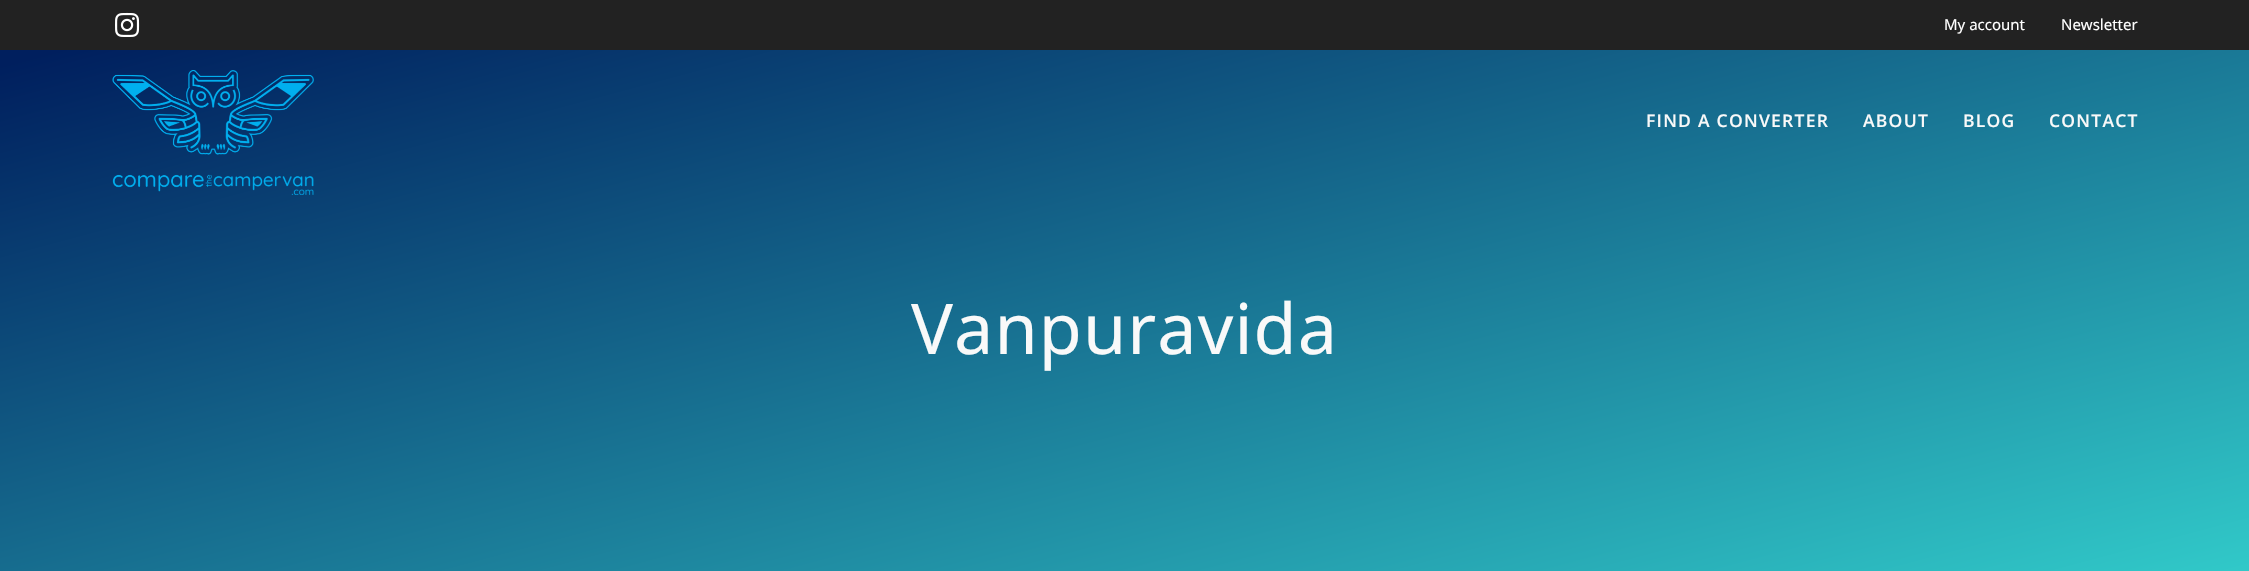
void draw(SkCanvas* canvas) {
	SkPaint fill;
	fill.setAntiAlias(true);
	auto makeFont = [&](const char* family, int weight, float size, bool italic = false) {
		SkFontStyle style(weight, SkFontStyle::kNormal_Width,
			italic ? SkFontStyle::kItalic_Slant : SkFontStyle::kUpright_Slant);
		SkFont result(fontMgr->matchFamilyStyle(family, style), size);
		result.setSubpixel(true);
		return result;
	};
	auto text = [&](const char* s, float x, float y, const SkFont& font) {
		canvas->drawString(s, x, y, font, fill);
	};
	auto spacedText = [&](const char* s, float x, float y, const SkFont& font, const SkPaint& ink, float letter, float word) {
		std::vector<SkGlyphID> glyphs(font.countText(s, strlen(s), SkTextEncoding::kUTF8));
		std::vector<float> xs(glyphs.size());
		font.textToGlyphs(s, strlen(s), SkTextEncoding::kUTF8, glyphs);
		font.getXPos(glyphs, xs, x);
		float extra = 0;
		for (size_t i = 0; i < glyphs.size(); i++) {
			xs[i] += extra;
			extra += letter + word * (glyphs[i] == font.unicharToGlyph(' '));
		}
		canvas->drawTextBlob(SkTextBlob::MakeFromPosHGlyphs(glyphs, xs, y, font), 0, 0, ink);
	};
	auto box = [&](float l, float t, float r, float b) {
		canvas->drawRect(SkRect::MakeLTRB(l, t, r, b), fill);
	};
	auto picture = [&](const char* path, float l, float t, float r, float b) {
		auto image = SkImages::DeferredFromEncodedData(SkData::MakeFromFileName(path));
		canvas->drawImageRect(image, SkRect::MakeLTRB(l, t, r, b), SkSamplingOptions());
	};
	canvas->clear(0xFFFFFFFF);
	fill.setColor(0xFF222222);
	box(0, 0, 2249, 50);
	picture("image0.png", 115, 12, 140, 37);
	{
		const SkColor colors[] = {0xFF37DED6, 0xFF001F5E};
		const float stops[] = {0, 0.95f};
		const SkPoint ends[] = {{1301, 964}, {973, -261}};
		fill.setShader(SkGradientShader::MakeLinear(ends, colors, stops, 2, SkTileMode::kClamp));
		fill.setAlpha(255);
	}
	box(0, 50, 2249, 571);
	picture("image1.png", 112, 70, 314, 195);
	auto font1 = makeFont("Noto Sans", 400, 15);
	fill.setShader(nullptr);
	fill.setColor(0xFFFFFFFF);
	text("My account", 1944, 30, font1);
	text("Newsletter", 2061, 30, font1);
	auto font2 = makeFont("Open Sans", 600, 17.5f);
	fill.setColor(0xFFF9F9F9);
	spacedText("FIND A CONVERTER", 1646, 127, font2, fill, 1.25f, 0);
	spacedText("ABOUT", 1863, 127, font2, fill, 1.25f, 0);
	spacedText("BLOG", 1963, 127, font2, fill, 1.25f, 0);
	spacedText("CONTACT", 2049, 127, font2, fill, 1.25f, 0);
	auto font3 = makeFont("Noto Sans", 400, 70);
	spacedText("Vanpuravida", 911, 354, font3, fill, 1.1f, 0);
}
